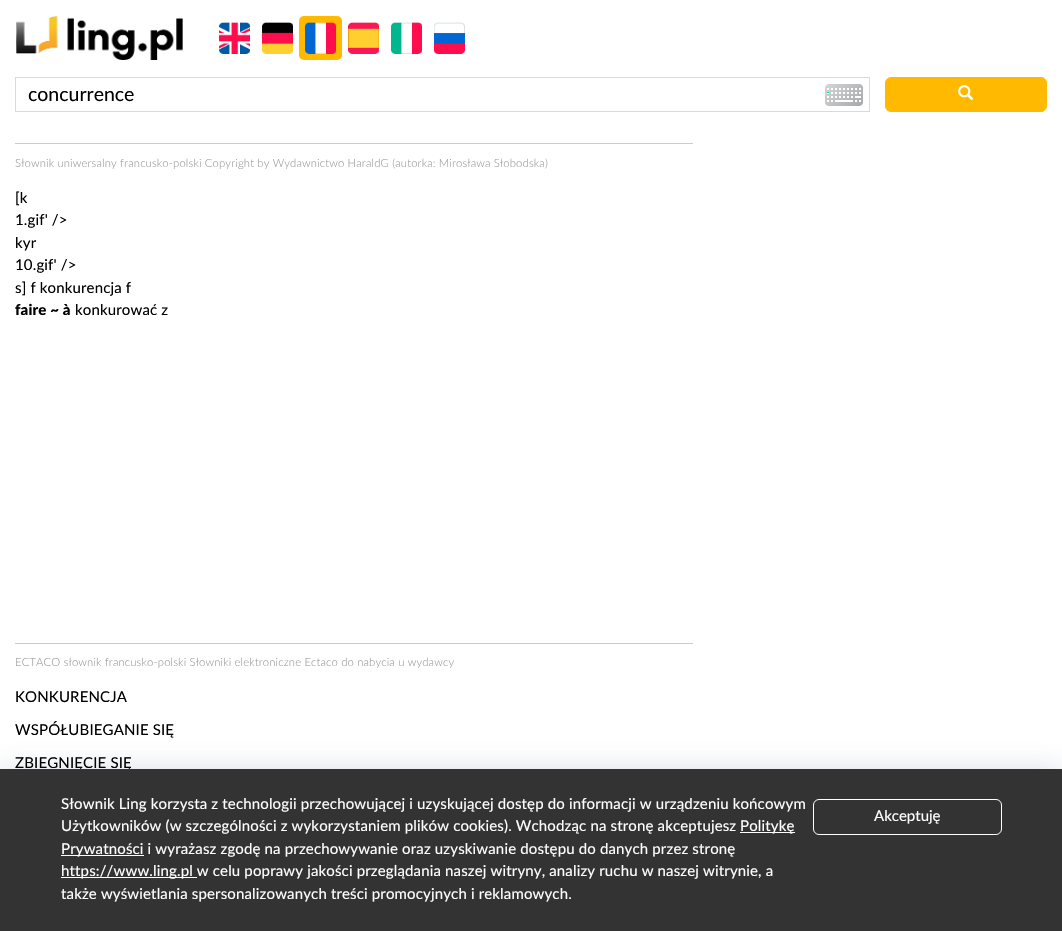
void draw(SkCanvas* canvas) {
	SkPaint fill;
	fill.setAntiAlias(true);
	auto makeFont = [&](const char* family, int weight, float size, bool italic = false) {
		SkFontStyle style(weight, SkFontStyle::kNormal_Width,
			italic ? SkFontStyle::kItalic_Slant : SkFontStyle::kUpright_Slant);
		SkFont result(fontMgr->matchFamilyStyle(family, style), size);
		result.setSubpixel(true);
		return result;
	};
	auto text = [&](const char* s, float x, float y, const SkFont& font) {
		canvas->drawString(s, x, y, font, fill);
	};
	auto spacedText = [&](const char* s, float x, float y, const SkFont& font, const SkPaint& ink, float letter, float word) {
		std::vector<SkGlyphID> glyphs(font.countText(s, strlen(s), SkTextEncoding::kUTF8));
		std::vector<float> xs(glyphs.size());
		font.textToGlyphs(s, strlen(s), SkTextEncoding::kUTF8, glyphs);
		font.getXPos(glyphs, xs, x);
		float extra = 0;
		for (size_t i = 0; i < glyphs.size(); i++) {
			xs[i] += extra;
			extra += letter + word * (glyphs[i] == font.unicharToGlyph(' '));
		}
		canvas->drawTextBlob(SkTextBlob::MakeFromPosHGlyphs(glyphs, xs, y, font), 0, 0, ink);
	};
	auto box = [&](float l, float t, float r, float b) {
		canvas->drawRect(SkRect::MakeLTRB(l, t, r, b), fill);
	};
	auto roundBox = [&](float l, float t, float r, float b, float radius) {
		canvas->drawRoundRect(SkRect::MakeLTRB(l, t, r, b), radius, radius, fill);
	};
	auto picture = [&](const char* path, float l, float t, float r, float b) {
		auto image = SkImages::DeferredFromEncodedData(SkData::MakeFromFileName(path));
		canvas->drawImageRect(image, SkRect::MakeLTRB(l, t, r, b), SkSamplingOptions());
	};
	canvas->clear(0xFFFFFFFF);
	picture("image0.png", 16, 16, 183, 60);
	picture("image1.png", 219, 22, 250, 54);
	picture("image2.png", 262, 22, 293, 54);
	fill.setColor(0xFFFFBA00);
	roundBox(299, 16, 342, 60, 5);
	picture("image3.png", 305, 22, 336, 54);
	picture("image4.png", 348, 22, 379, 54);
	picture("image5.png", 391, 22, 422, 54);
	picture("image6.png", 434, 22, 465, 54);
	fill.setStyle(SkPaint::kStroke_Style);
	fill.setStrokeWidth(1);
	fill.setColor(0xFFD6DBDF);
	canvas->drawRect(SkRect::MakeLTRB(15.5f, 77.5f, 869.5f, 111.5f), fill);
	picture("image7.png", 825, 84, 863, 106);
	fill.setStyle(SkPaint::kFill_Style);
	fill.setColor(0xFFFFBA00);
	canvas->drawRoundRect(SkRect::MakeLTRB(885.5f, 77.5f, 1046.5f, 111.5f), 5.5f, 5.5f, fill);
	fill.setStyle(SkPaint::kStroke_Style);
	canvas->drawRoundRect(SkRect::MakeLTRB(885.5f, 77.5f, 1046.5f, 111.5f), 5.5f, 5.5f, fill);
	picture("image8.png", 958, 85, 974, 100);
	fill.setStyle(SkPaint::kFill_Style);
	fill.setColor(0xFFCCCCCC);
	box(15, 143, 693, 144);
	box(15, 643, 693, 644);
	fill.setColor(0x333C5983);
	fill.setMaskFilter(SkMaskFilter::MakeBlur(kNormal_SkBlurStyle, 13.5f));
	canvas->drawRect(SkRect::MakeLTRB(0, 769, 1062, 931), fill);
	fill.setMaskFilter(nullptr);
	auto font1 = makeFont("Lato", 400, 19.5f);
	fill.setColor(0xFF000000);
	text("concurrence", 28, 101, font1);
	auto font2 = makeFont("Lato", 300, 11.25f);
	fill.setColor(0xFF999999);
	spacedText("Słownik uniwersalny francusko-polski Copyright by Wydawnictwo HaraldG (autorka: Mirosława Słobodska)", 15, 167, font2, fill, 0.15f, 0);
	auto font3 = makeFont("Lato", 400, 15);
	fill.setColor(0xFF000000);
	spacedText("[k", 15, 203, font3, fill, 0.15f, 0);
	spacedText("1.gif' />", 15, 225, font3, fill, 0.15f, 0);
	spacedText("kyr", 15, 248, font3, fill, 0.15f, 0);
	spacedText("10.gif' />", 15, 270, font3, fill, 0.15f, 0);
	spacedText("s] f konkurencja f", 15, 293, font3, fill, 0.15f, 0);
	auto font4 = makeFont("Lato", 900, 15);
	spacedText("faire ~ à", 15, 315, font4, fill, 0.15f, 0);
	spacedText("konkurować z", 75, 315, font3, fill, 0.15f, 0);
	fill.setColor(0xFF999999);
	spacedText("ECTACO słownik francusko-polski Słowniki elektroniczne Ectaco do nabycia u wydawcy", 15, 666, font2, fill, 0.15f, 0);
	fill.setColor(0xFF000000);
	spacedText("KONKURENCJA", 15, 702, font3, fill, 0.15f, 0);
	spacedText("WSPÓŁUBIEGANIE SIĘ", 15, 735, font3, fill, 0.15f, 0);
	spacedText("ZBIEGNIĘCIE SIĘ", 15, 768, font3, fill, 0.15f, 0);
	fill.setColor(0xFF333333);
	box(0, 769, 1062, 931);
	fill.setColor(0xFFFFFFFF);
	spacedText("Słownik Ling korzysta z technologii przechowującej i uzyskującej dostęp do informacji w urządzeniu końcowym", 61, 809, font3, fill, 0.15f, 0);
	spacedText("Użytkowników (w szczególności z wykorzystaniem plików cookies). Wchodząc na stronę akceptujesz", 61, 831, font3, fill, 0.15f, 0);
	box(740, 832, 795, 833);
	spacedText("Politykę", 740, 831, font3, fill, 0.15f, 0);
	box(61, 855, 144, 856);
	spacedText("Prywatności i wyrażasz zgodę na przechowywanie oraz uzyskiwanie dostępu do danych przez stronę", 61, 854, font3, fill, 0.15f, 0);
	box(61, 877, 197, 878);
	spacedText("https://www.ling.pl w celu poprawy jakości przeglądania naszej witryny, analizy ruchu w naszej witrynie, a", 61, 876, font3, fill, 0.15f, 0);
	spacedText("także wyświetlania spersonalizowanych treści promocyjnych i reklamowych.", 61, 899, font3, fill, 0.15f, 0);
	fill.setStyle(SkPaint::kStroke_Style);
	canvas->drawRoundRect(SkRect::MakeLTRB(813.5f, 799.5f, 1001.5f, 834.5f), 5.5f, 5.5f, fill);
	fill.setStyle(SkPaint::kFill_Style);
	text("Akceptuję", 874, 821, font3);
}
